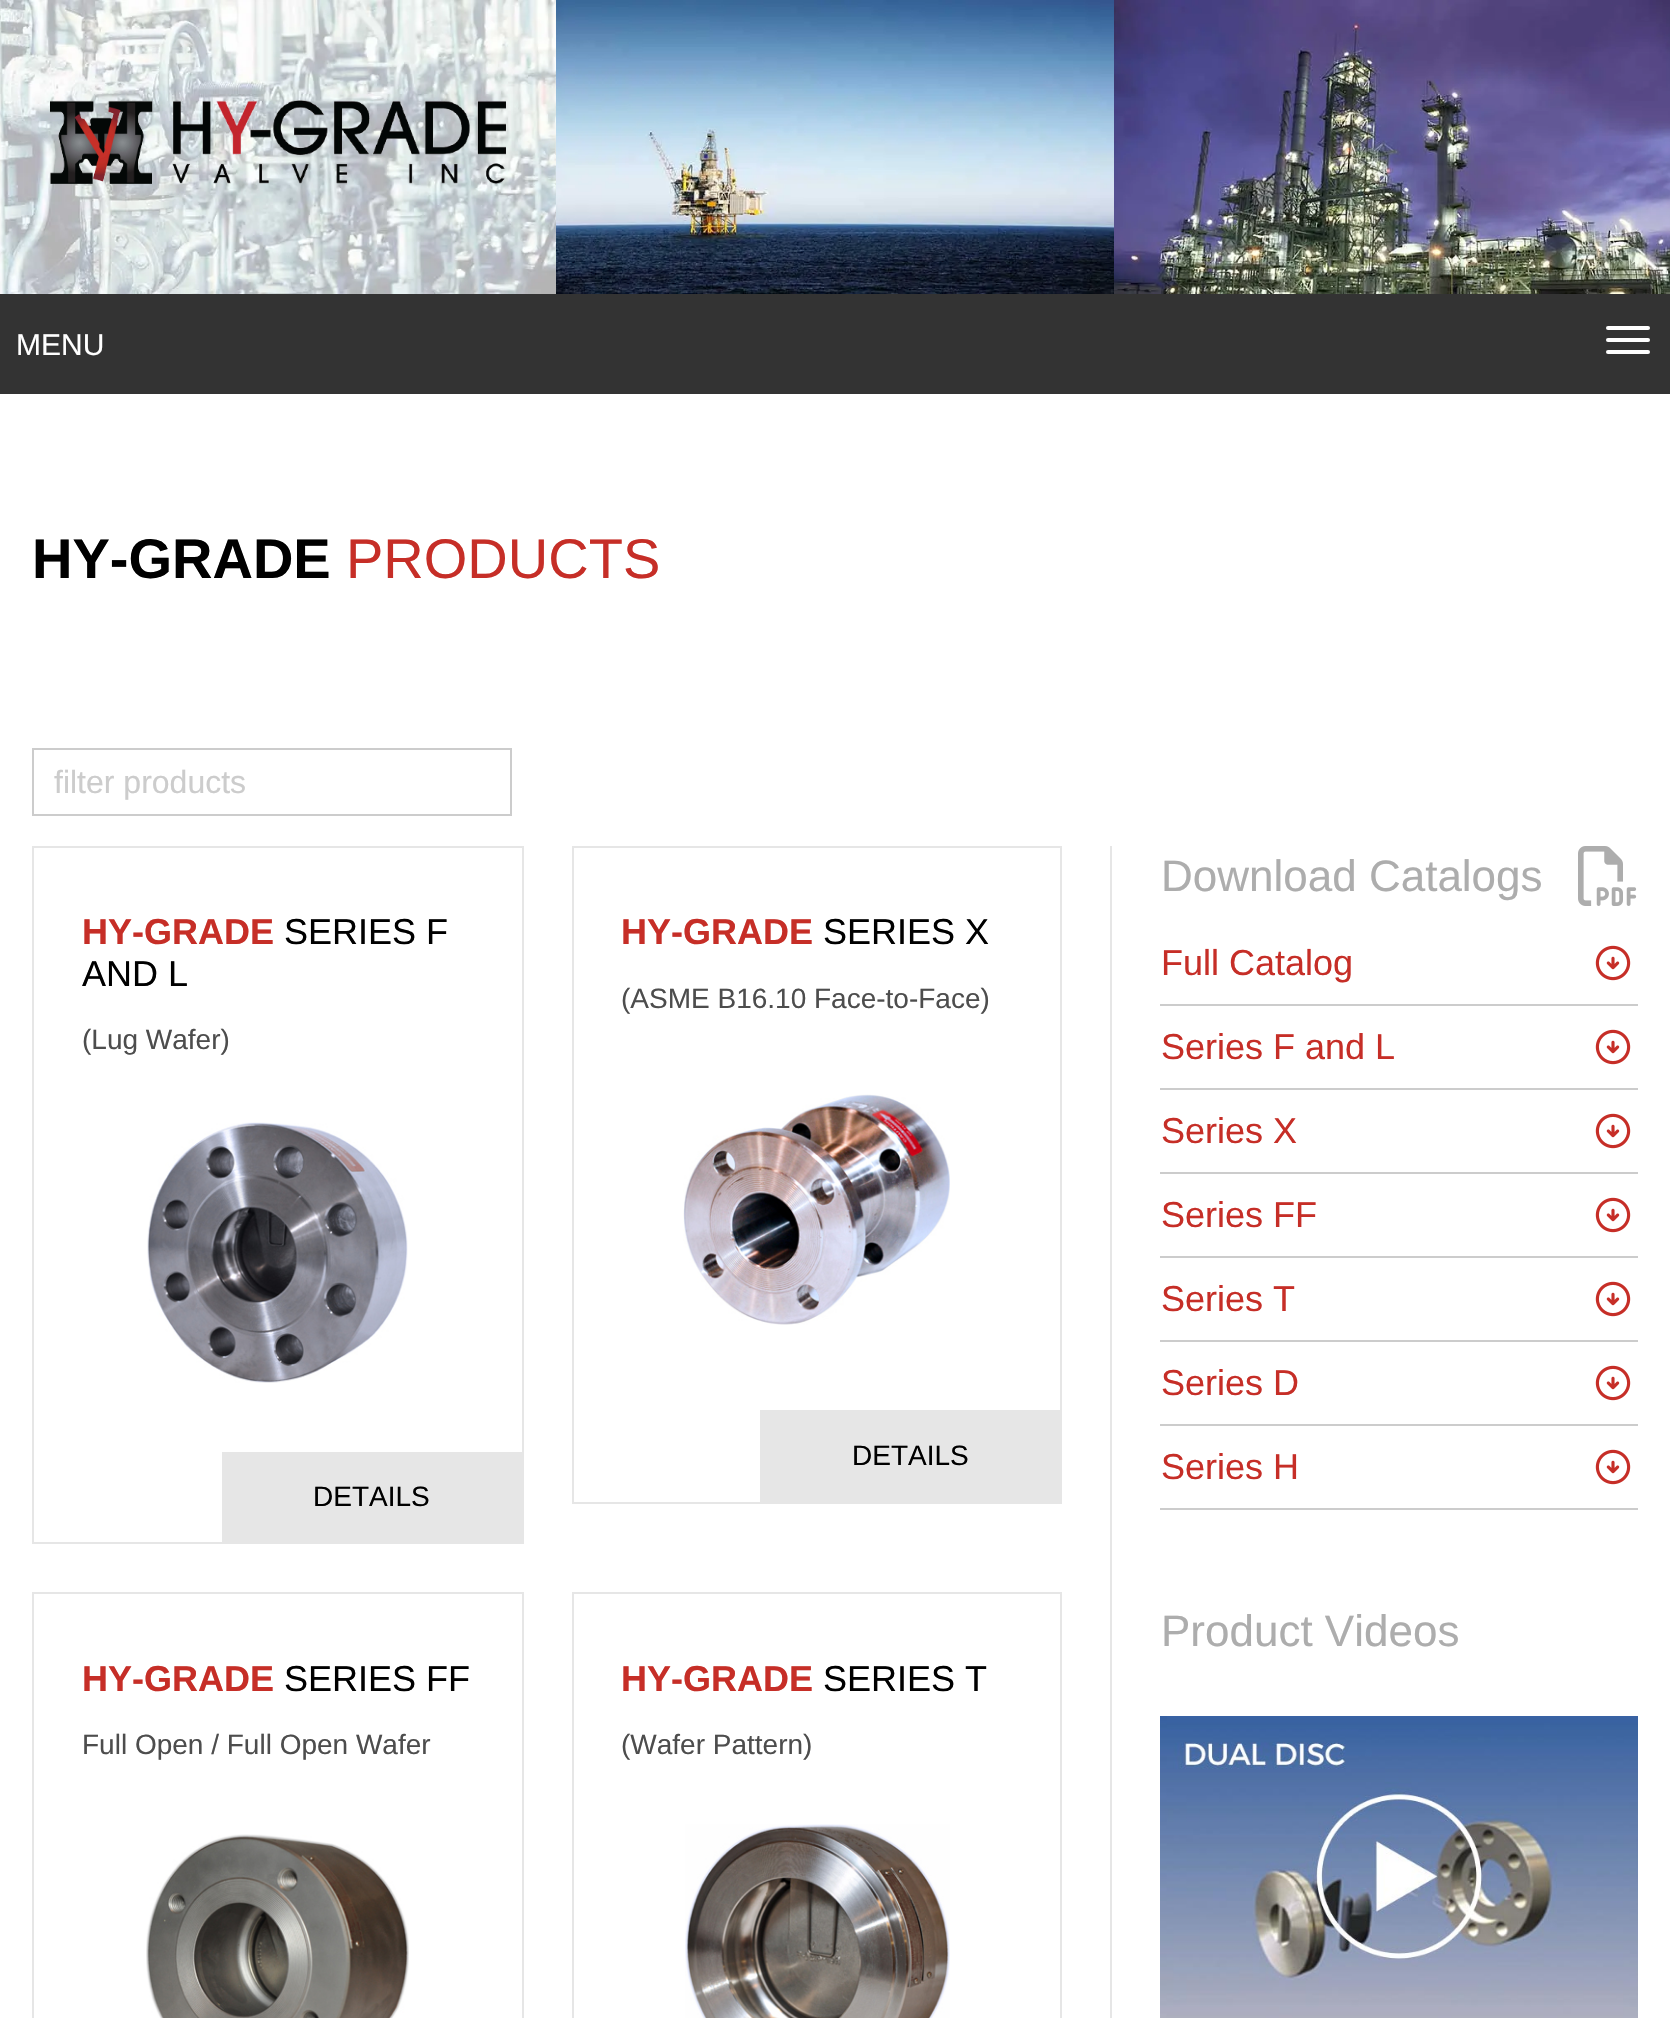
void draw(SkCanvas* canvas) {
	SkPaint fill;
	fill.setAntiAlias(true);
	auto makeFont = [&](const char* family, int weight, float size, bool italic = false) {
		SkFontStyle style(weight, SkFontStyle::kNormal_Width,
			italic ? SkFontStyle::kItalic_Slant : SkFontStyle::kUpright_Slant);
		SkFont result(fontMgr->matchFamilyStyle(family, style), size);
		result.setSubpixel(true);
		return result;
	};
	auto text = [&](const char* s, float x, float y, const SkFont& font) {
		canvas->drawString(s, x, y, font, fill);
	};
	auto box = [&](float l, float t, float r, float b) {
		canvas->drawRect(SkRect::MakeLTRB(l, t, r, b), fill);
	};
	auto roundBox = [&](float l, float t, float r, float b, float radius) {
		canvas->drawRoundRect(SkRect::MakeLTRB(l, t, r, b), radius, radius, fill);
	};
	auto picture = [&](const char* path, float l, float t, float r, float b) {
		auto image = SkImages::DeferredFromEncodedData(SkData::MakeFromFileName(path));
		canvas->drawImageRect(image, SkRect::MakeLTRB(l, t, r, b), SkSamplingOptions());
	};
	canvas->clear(0xFFFFFFFF);
	fill.setColor(0xFF333333);
	box(0, 294, 1670, 394);
	picture("image0.png", 0, 0, 556, 294);
	picture("image1.png", 50, 100, 506, 184);
	picture("image2.png", 556, 0, 1114, 294);
	picture("image3.png", 1114, 0, 1670, 294);
	fill.setColor(0xFFFFFFFF);
	roundBox(1606, 326, 1650, 330, 2);
	roundBox(1606, 338, 1650, 342, 2);
	roundBox(1606, 350, 1650, 354, 2);
	fill.setStyle(SkPaint::kStroke_Style);
	fill.setStrokeWidth(2);
	fill.setColor(0xFFCCCCCC);
	canvas->drawRect(SkRect::MakeLTRB(33, 749, 511, 815), fill);
	fill.setColor(0xFFE6E6E6);
	canvas->drawRect(SkRect::MakeLTRB(33, 847, 523, 1543), fill);
	picture("image4.png", 147, 1122, 408, 1383);
	fill.setStyle(SkPaint::kFill_Style);
	box(222, 1452, 522, 1542);
	fill.setStyle(SkPaint::kStroke_Style);
	canvas->drawRect(SkRect::MakeLTRB(573, 847, 1061, 1503), fill);
	picture("image5.png", 683, 1094, 950, 1325);
	fill.setStyle(SkPaint::kFill_Style);
	box(760, 1410, 1060, 1502);
	fill.setStyle(SkPaint::kStroke_Style);
	canvas->drawRect(SkRect::MakeLTRB(33, 1593, 523, 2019), fill);
	picture("image6.png", 146, 1834, 409, 2018);
	canvas->drawRect(SkRect::MakeLTRB(573, 1593, 1061, 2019), fill);
	picture("image7.png", 685, 1824, 950, 2018);
	fill.setStyle(SkPaint::kFill_Style);
	box(1110, 846, 1112, 2018);
	picture("image8.png", 1578, 846, 1637, 906);
	fill.setColor(0xFFCCCCCC);
	box(1160, 1004, 1638, 1006);
	picture("image9.png", 1595, 945, 1631, 981);
	box(1160, 1088, 1638, 1090);
	picture("image9.png", 1595, 1029, 1631, 1065);
	box(1160, 1172, 1638, 1174);
	picture("image9.png", 1595, 1113, 1631, 1149);
	box(1160, 1256, 1638, 1258);
	picture("image9.png", 1595, 1197, 1631, 1233);
	box(1160, 1340, 1638, 1342);
	picture("image9.png", 1595, 1281, 1631, 1317);
	box(1160, 1424, 1638, 1426);
	picture("image9.png", 1595, 1365, 1631, 1401);
	box(1160, 1508, 1638, 1510);
	picture("image9.png", 1595, 1449, 1631, 1485);
	picture("image10.png", 1160, 1716, 1638, 2018);
	auto font1 = makeFont("Liberation Sans", 400, 30);
	fill.setColor(0xFFFFFFFF);
	text("MENU", 16, 355, font1);
	auto font2 = makeFont("Liberation Sans", 700, 56);
	fill.setColor(0xFF000000);
	text("HY-GRADE", 32, 578, font2);
	auto font3 = makeFont("Liberation Sans", 400, 56);
	fill.setColor(0xFFC62E27);
	text("PRODUCTS", 346, 578, font3);
	auto font4 = makeFont("Liberation Sans", 400, 32);
	fill.setColor(0xFFCCCCCC);
	text("filter products", 54, 793, font4);
	auto font5 = makeFont("Liberation Sans", 700, 36);
	fill.setColor(0xFFC62E27);
	text("HY-GRADE", 82, 944, font5);
	auto font6 = makeFont("Liberation Sans", 400, 36);
	fill.setColor(0xFF000000);
	text("SERIES F", 284, 944, font6);
	text("AND L", 82, 986, font6);
	auto font7 = makeFont("Liberation Sans", 400, 28);
	fill.setColor(0xFF4D4D4D);
	text("(Lug Wafer)", 82, 1049, font7);
	fill.setColor(0xFF000000);
	text("DETAILS", 313, 1506, font7);
	fill.setColor(0xFFC62E27);
	text("HY-GRADE", 621, 944, font5);
	fill.setColor(0xFF000000);
	text("SERIES X", 823, 944, font6);
	fill.setColor(0xFF4D4D4D);
	text("(ASME B16.10 Face-to-Face)", 621, 1008, font7);
	fill.setColor(0xFF000000);
	text("DETAILS", 852, 1465, font7);
	fill.setColor(0xFFC62E27);
	text("HY-GRADE", 82, 1691, font5);
	fill.setColor(0xFF000000);
	text("SERIES FF", 284, 1691, font6);
	fill.setColor(0xFF4D4D4D);
	text("Full Open / Full Open Wafer", 82, 1754, font7);
	fill.setColor(0xFFC62E27);
	text("HY-GRADE", 621, 1691, font5);
	fill.setColor(0xFF000000);
	text("SERIES T", 823, 1691, font6);
	fill.setColor(0xFF4D4D4D);
	text("(Wafer Pattern)", 621, 1754, font7);
	auto font8 = makeFont("Liberation Sans", 400, 44);
	fill.setColor(0xFFADADAD);
	text("Download Catalogs", 1161, 891, font8);
	fill.setColor(0xFFC62E27);
	text("Full Catalog", 1161, 975, font6);
	text("Series F and L", 1161, 1059, font6);
	text("Series X", 1161, 1143, font6);
	text("Series FF", 1161, 1227, font6);
	text("Series T", 1161, 1311, font6);
	text("Series D", 1161, 1395, font6);
	text("Series H", 1161, 1479, font6);
	fill.setColor(0xFFADADAD);
	text("Product Videos", 1161, 1646, font8);
}
